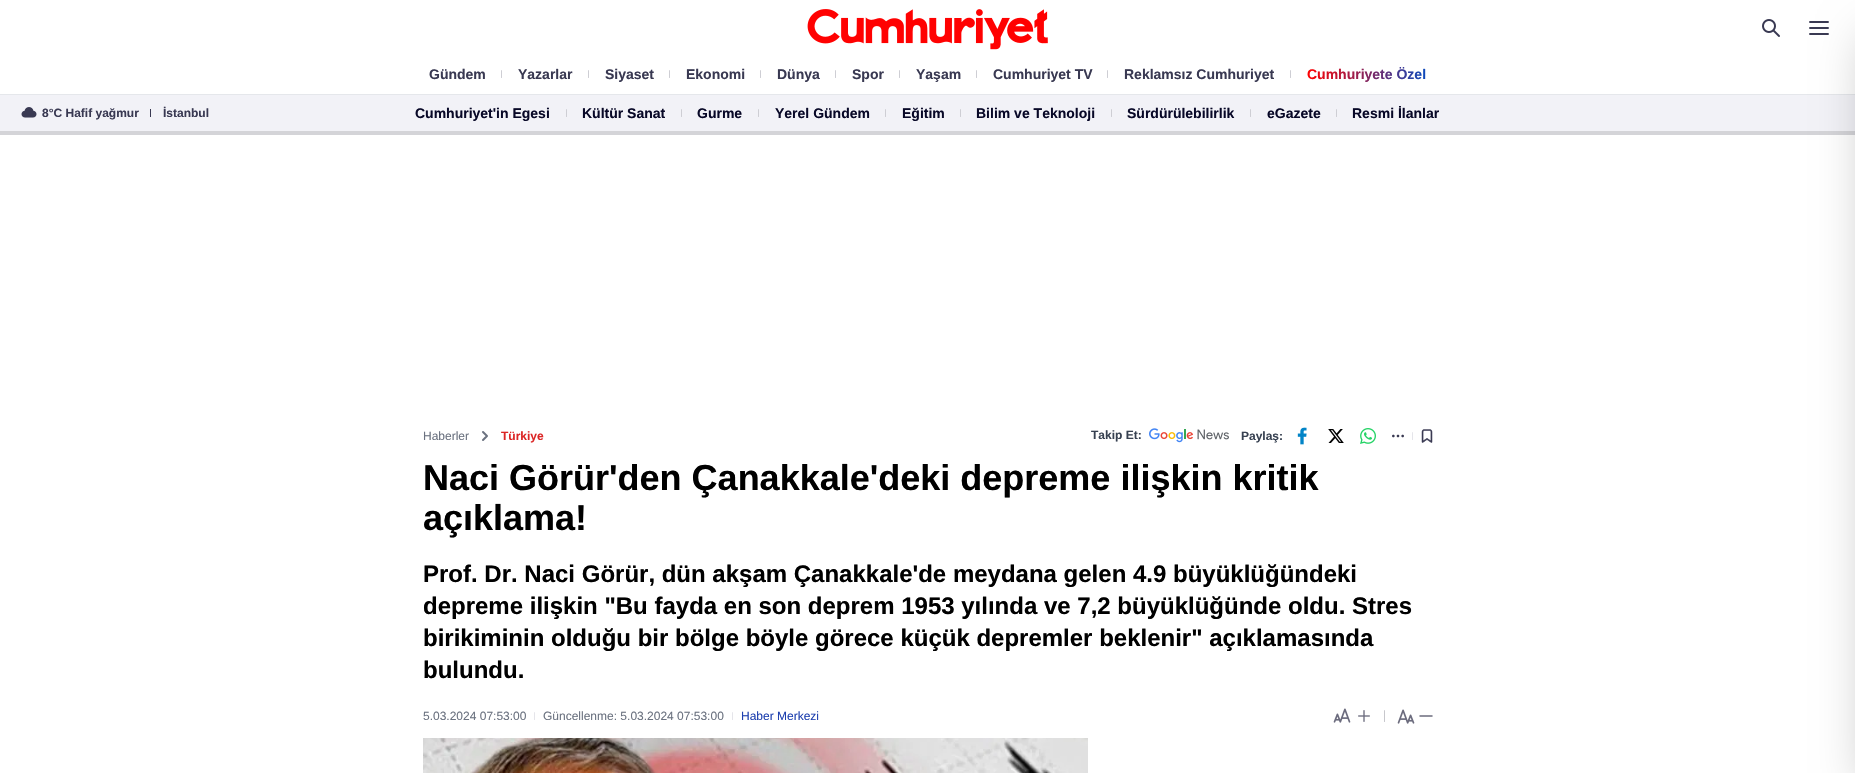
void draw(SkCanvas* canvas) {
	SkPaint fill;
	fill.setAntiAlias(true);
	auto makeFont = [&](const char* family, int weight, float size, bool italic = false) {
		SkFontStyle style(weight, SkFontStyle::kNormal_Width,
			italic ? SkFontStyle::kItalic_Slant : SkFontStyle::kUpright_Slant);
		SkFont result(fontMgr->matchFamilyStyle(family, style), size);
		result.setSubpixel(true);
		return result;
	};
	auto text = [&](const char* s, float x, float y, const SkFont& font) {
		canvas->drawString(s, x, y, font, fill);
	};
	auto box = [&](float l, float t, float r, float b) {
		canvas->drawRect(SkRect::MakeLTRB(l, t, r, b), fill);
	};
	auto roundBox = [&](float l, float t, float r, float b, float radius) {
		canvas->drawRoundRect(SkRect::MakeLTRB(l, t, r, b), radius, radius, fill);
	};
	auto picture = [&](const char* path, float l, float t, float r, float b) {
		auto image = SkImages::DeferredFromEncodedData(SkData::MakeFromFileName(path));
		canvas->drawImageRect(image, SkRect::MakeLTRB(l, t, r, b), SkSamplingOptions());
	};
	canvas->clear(0xFFFFFFFF);
	picture("image0.png", 807, 9, 1048, 50);
	picture("image1.png", 1762, 19, 1780, 37);
	picture("image2.png", 1809, 21, 1829, 35);
	fill.setColor(0xFFCECED4);
	roundBox(501, 70, 502, 78, 0.5f);
	roundBox(588, 70, 589, 78, 0.5f);
	roundBox(669, 70, 670, 78, 0.5f);
	roundBox(760, 70, 761, 78, 0.5f);
	roundBox(835, 70, 836, 78, 0.5f);
	roundBox(899, 70, 900, 78, 0.5f);
	roundBox(976, 70, 977, 78, 0.5f);
	roundBox(1107, 70, 1108, 78, 0.5f);
	roundBox(1290, 70, 1291, 78, 0.5f);
	fill.setColor(0xFFF2F2F7);
	box(0, 95, 1855, 131);
	fill.setColor(0xFFE5E7EB);
	box(0, 94, 1855, 95);
	picture("image3.png", 21, 107, 37, 118);
	fill.setColor(0xFF393952);
	box(150, 109, 151, 117);
	fill.setColor(0xFFCECED4);
	roundBox(566, 109, 567, 117, 0.5f);
	roundBox(681, 109, 682, 117, 0.5f);
	roundBox(758, 109, 759, 117, 0.5f);
	roundBox(885, 109, 886, 117, 0.5f);
	roundBox(960, 109, 961, 117, 0.5f);
	roundBox(1111, 109, 1112, 117, 0.5f);
	roundBox(1250, 109, 1251, 117, 0.5f);
	roundBox(1336, 109, 1337, 117, 0.5f);
	fill.setColor(0xFFD4D4D8);
	box(0, 131, 1855, 135);
	fill.setColor(0x40000000);
	fill.setMaskFilter(SkMaskFilter::MakeBlur(kNormal_SkBlurStyle, 25));
	canvas->drawRect(SkRect::MakeLTRB(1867, 37, 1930, 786), fill);
	fill.setMaskFilter(nullptr);
	fill.setStyle(SkPaint::kStroke_Style);
	fill.setStrokeWidth(2);
	fill.setStrokeCap(SkPaint::kRound_Cap);
	fill.setStrokeJoin(SkPaint::kRound_Join);
	fill.setColor(0xFF6B7280);
	canvas->drawPath(SkPathBuilder().moveTo(483, 440).lineTo(487, 436).lineTo(483, 432).detach(), fill);
	picture("image4.png", 1149, 428, 1229, 443);
	picture("image5.png", 1297, 427, 1307, 445);
	picture("image6.png", 1328, 429, 1344, 443);
	picture("image7.png", 1360, 428, 1376, 444);
	picture("image8.png", 1392, 434, 1404, 438);
	fill.setStyle(SkPaint::kFill_Style);
	fill.setColor(0xFFE5E5EA);
	roundBox(1412, 432, 1413, 440, 0.5f);
	picture("image9.png", 1421, 429, 1433, 443);
	roundBox(534, 712, 535, 720, 0.5f);
	roundBox(732, 712, 733, 720, 0.5f);
	picture("image10.png", 1333, 708, 1351, 723);
	picture("image11.png", 1358, 710, 1370, 722);
	fill.setColor(0xFFC7C7CC);
	roundBox(1384, 710, 1385, 722, 0.5f);
	picture("image12.png", 1397, 709, 1415, 724);
	fill.setStyle(SkPaint::kStroke_Style);
	fill.setStrokeWidth(1.5f);
	fill.setStrokeJoin(SkPaint::kMiter_Join);
	fill.setColor(0xFF6B6B7D);
	canvas->drawPath(SkPathBuilder().moveTo(1420, 716).lineTo(1432, 716).detach(), fill);
	picture("image13.png", 423, 738, 1088, 773);
	auto font1 = makeFont("Liberation Sans", 700, 14);
	fill.setStyle(SkPaint::kFill_Style);
	fill.setColor(0xFF393952);
	text("Gündem", 429, 79, font1);
	text("Yazarlar", 518, 79, font1);
	text("Siyaset", 605, 79, font1);
	text("Ekonomi", 686, 79, font1);
	text("Dünya", 777, 79, font1);
	text("Spor", 852, 79, font1);
	text("Yaşam", 916, 79, font1);
	text("Cumhuriyet TV", 993, 79, font1);
	text("Reklamsız Cumhuriyet", 1124, 79, font1);
	{
		const SkColor colors[] = {0xFFFF0101, 0xFF0D4ABC};
		const float stops[] = {0, 1};
		const SkPoint ends[] = {{1307, 74}, {1426, 74}};
		fill.setShader(SkGradientShader::MakeLinear(ends, colors, stops, 2, SkTileMode::kClamp));
		fill.setAlpha(255);
	}
	text("Cumhuriyete Özel", 1307, 79, font1);
	auto font2 = makeFont("Liberation Sans", 700, 12);
	fill.setShader(nullptr);
	fill.setColor(0xFF393952);
	text("8°C Hafif yağmur", 42, 117, font2);
	text("İstanbul", 163, 117, font2);
	fill.setColor(0xFF080827);
	text("Cumhuriyet'in Egesi", 415, 118, font1);
	text("Kültür Sanat", 582, 118, font1);
	text("Gurme", 697, 118, font1);
	text("Yerel Gündem", 775, 118, font1);
	text("Eğitim", 902, 118, font1);
	text("Bilim ve Teknoloji", 976, 118, font1);
	text("Sürdürülebilirlik", 1127, 118, font1);
	text("eGazete", 1267, 118, font1);
	text("Resmi İlanlar", 1352, 118, font1);
	auto font3 = makeFont("Liberation Sans", 400, 12);
	fill.setColor(0xFF6B7280);
	text("Haberler", 423, 440, font3);
	fill.setColor(0xFFDC2626);
	text("Türkiye", 501, 440, font2);
	fill.setColor(0xFF374151);
	text("Takip Et:", 1091, 439, font2);
	text("Paylaş:", 1241, 440, font2);
	auto font4 = makeFont("Liberation Sans", 700, 36);
	fill.setColor(0xFF000000);
	text("Naci Görür'den Çanakkale'deki depreme ilişkin kritik", 423, 490, font4);
	text("açıklama!", 423, 530, font4);
	auto font5 = makeFont("Liberation Sans", 700, 24);
	text("Prof. Dr. Naci Görür, dün akşam Çanakkale'de meydana gelen 4.9 büyüklüğündeki", 423, 582, font5);
	text("depreme ilişkin \"Bu fayda en son deprem 1953 yılında ve 7,2 büyüklüğünde oldu. Stres", 423, 614, font5);
	text("birikiminin olduğu bir bölge böyle görece küçük depremler beklenir\" açıklamasında", 423, 646, font5);
	text("bulundu.", 423, 678, font5);
	fill.setColor(0xFF6B7280);
	text("5.03.2024 07:53:00", 423, 720, font3);
	text("Güncellenme: 5.03.2024 07:53:00", 543, 720, font3);
	fill.setColor(0xFF1E40AF);
	text("Haber Merkezi", 741, 720, font3);
}
